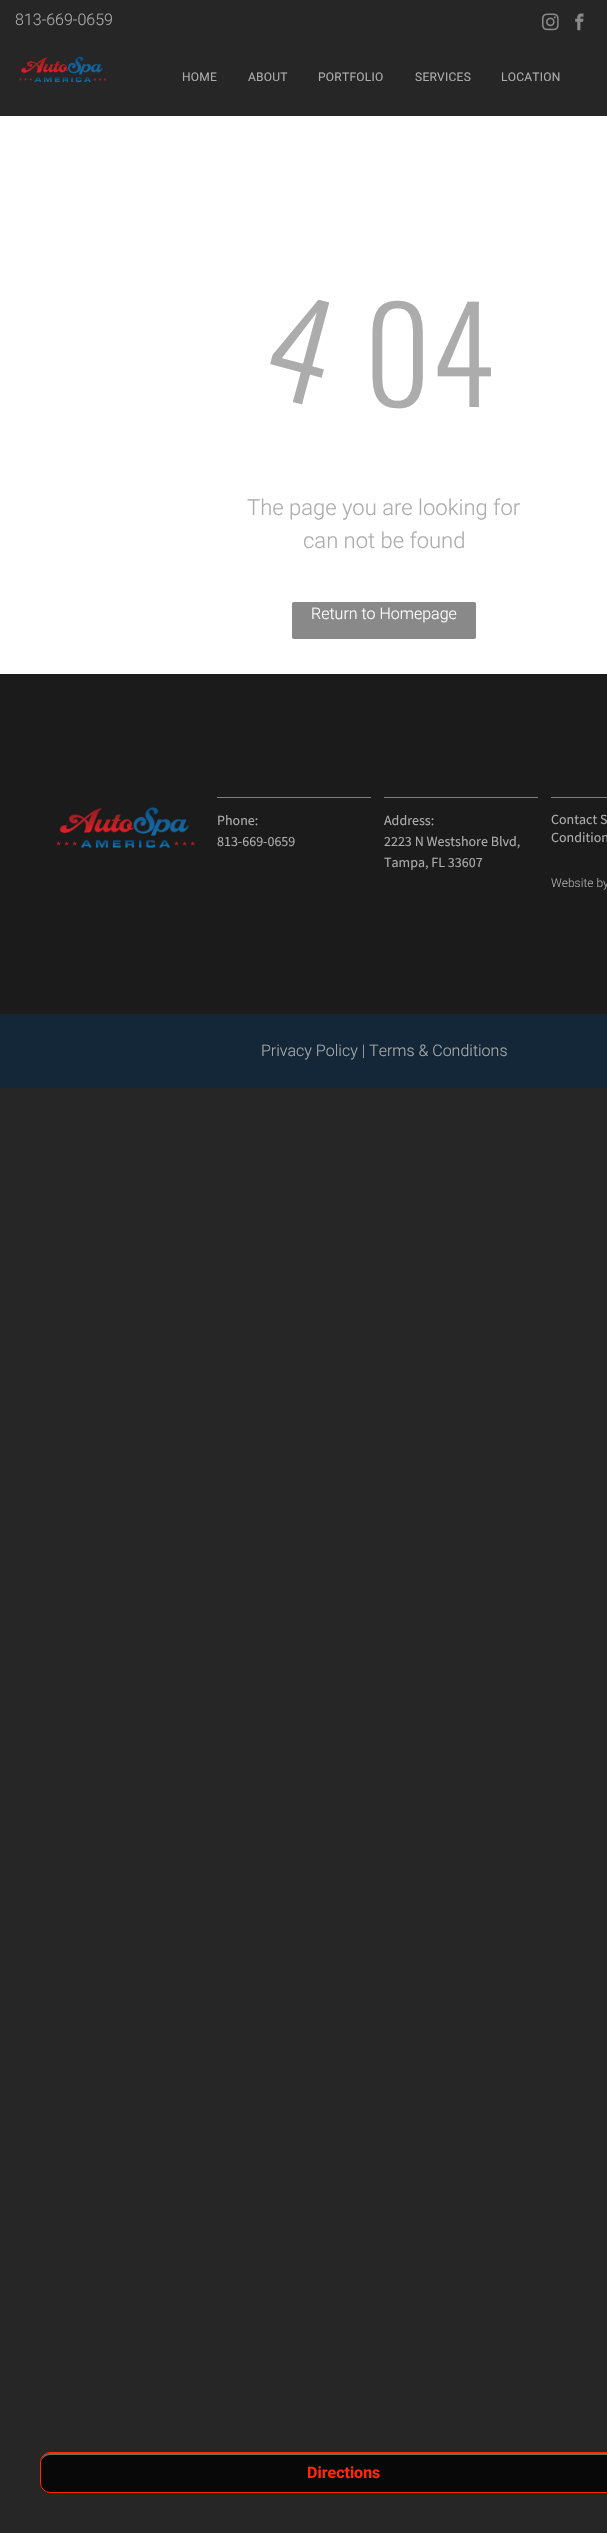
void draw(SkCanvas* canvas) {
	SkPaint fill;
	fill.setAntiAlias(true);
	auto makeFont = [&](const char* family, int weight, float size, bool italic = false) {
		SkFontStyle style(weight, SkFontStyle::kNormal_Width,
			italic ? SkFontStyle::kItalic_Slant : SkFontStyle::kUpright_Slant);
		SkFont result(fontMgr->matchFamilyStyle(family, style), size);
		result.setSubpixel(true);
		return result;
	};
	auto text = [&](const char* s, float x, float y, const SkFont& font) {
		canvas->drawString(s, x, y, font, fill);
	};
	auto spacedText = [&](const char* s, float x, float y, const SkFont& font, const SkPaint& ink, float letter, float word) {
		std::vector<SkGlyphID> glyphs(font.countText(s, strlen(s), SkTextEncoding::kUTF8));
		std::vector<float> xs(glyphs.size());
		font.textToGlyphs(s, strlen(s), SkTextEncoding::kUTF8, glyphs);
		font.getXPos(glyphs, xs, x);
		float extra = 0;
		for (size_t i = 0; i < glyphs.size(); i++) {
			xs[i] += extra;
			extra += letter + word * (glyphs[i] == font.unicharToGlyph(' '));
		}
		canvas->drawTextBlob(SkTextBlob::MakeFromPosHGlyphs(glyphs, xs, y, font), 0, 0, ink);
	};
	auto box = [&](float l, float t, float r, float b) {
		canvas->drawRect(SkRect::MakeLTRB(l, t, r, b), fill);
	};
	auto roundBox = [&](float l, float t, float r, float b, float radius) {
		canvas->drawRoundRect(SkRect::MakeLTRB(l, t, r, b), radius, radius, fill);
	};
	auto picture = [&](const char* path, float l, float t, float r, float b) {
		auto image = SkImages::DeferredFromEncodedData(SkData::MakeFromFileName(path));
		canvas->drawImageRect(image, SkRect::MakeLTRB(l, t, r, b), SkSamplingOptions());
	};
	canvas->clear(0xFF262626);
	picture("image0.png", 542, 13, 559, 31);
	picture("image1.png", 575, 13, 584, 31);
	picture("image2.png", 19, 56, 107, 82);
	fill.setColor(0xFFFFFFFF);
	box(0, 116, 607, 674);
	fill.setColor(0xFF898989);
	roundBox(292, 602, 476, 639, 2);
	fill.setColor(0xFF132738);
	box(0, 1014, 607, 1088);
	fill.setColor(0xFF1B1B1B);
	box(0, 674, 607, 1014);
	picture("image3.png", 56, 807, 195, 848);
	fill.setColor(0xFF808080);
	box(217, 797, 371, 798);
	box(384, 797, 538, 798);
	box(551, 797, 607, 798);
	fill.setColor(0xFF080808);
	roundBox(40, 2452, 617, 2493, 10);
	fill.setColor(0xFF6A6A6A);
	canvas->drawPath(SkPathBuilder().moveTo(50, 2455).lineTo(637, 2455).cubicTo(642, 2455, 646, 2459, 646, 2464).cubicTo(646, 2458, 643, 2453, 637, 2453).lineTo(50, 2453).cubicTo(44, 2453, 41, 2458, 41, 2464).cubicTo(41, 2459, 45, 2455, 50, 2455).close().detach(), fill);
	fill.setStyle(SkPaint::kStroke_Style);
	fill.setStrokeWidth(1);
	fill.setColor(0xFFFF2A00);
	canvas->drawRoundRect(SkRect::MakeLTRB(40.5f, 2452.5f, 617.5f, 2492.5f), 9.5f, 9.5f, fill);
	auto font1 = makeFont("Roboto", 300, 16);
	fill.setStyle(SkPaint::kFill_Style);
	fill.setColor(0xFFACACAC);
	text("813-669-0659", 15, 25, font1);
	auto font2 = makeFont("Roboto", 400, 12);
	spacedText("HOME", 182, 81, font2, fill, 0.25f, 0);
	spacedText("ABOUT", 248, 81, font2, fill, 0.25f, 0);
	spacedText("PORTFOLIO", 318, 81, font2, fill, 0.25f, 0);
	spacedText("SERVICES", 415, 81, font2, fill, 0.25f, 0);
	spacedText("LOCATION", 501, 81, font2, fill, 0.25f, 0);
	auto font3 = makeFont("Oswald", 300, 130);
	canvas->save();
	canvas->rotate(15, 256, 392);
	text("4", 256, 392, font3);
	canvas->restore();
	text("04", 364, 407, font3);
	auto font4 = makeFont("Roboto", 300, 22);
	text("The page you are looking for", 247, 515, font4);
	text("can not be found", 303, 548, font4);
	fill.setColor(0xFFFFFFFF);
	text("Return to Homepage", 311, 619, font1);
	auto font5 = makeFont("Source Sans Pro", 400, 14);
	fill.setColor(0xFFACACAC);
	text("Phone:", 217, 825, font5);
	text("813-669-0659", 217, 846, font5);
	text("Address:", 384, 825, font5);
	text("2223 N Westshore Blvd,", 384, 846, font5);
	text("Tampa, FL 33607", 384, 867, font5);
	text("Contact S", 551, 824, font5);
	text("Condition", 551, 842, font5);
	auto font6 = makeFont("Roboto", 300, 12);
	text("Website by", 551, 887, font6);
	text("Privacy Policy | Terms & Conditions", 261, 1056, font1);
	auto font7 = makeFont("Roboto", 700, 16);
	fill.setColor(0xFFFF2A00);
	text("Directions", 307, 2478, font7);
}
